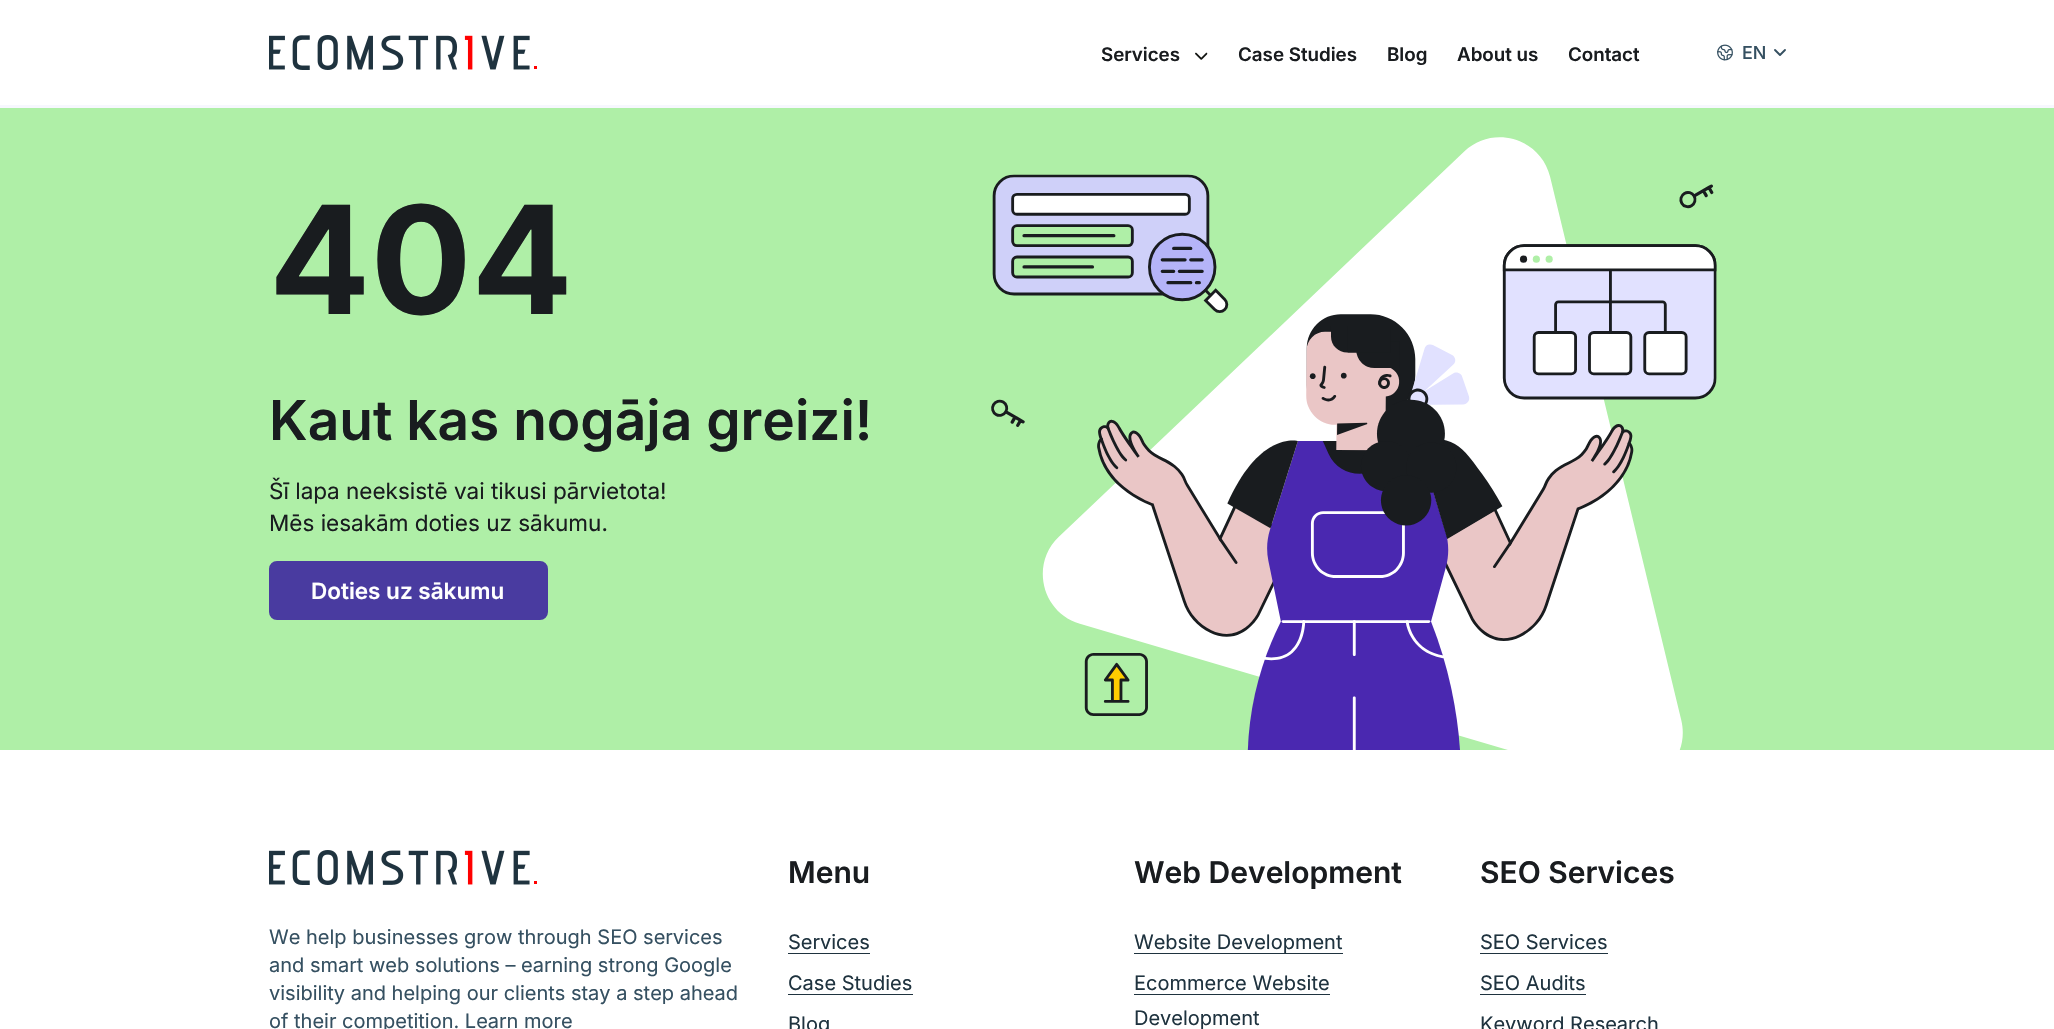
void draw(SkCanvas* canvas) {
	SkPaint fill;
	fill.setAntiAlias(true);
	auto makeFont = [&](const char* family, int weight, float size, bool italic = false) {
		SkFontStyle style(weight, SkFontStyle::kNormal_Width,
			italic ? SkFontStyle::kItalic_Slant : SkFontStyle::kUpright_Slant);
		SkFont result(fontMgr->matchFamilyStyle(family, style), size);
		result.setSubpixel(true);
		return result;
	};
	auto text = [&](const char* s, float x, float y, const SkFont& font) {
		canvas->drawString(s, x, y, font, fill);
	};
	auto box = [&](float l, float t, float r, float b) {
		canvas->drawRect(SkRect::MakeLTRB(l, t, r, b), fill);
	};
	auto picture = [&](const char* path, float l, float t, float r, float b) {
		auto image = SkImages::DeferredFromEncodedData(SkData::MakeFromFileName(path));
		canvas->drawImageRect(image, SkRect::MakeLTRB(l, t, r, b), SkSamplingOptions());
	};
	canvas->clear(0xFFFFFFFF);
	picture("image0.png", 269, 35, 537, 70);
	picture("image1.png", 1195, 52, 1208, 60);
	picture("image2.png", 1717, 44, 1733, 61);
	fill.setStyle(SkPaint::kStroke_Style);
	fill.setStrokeWidth(1.9f);
	fill.setStrokeCap(SkPaint::kRound_Cap);
	fill.setStrokeJoin(SkPaint::kRound_Join);
	fill.setColor(0xFF355061);
	canvas->drawPath(SkPathBuilder().moveTo(1775, 50).lineTo(1780, 55).lineTo(1785, 50).detach(), fill);
	fill.setStyle(SkPaint::kFill_Style);
	fill.setColor(0xFFF7F7FE);
	box(0, 105, 2054, 108);
	fill.setColor(0xFFAFEFA7);
	box(0, 108, 2054, 750);
	fill.setColor(0xFF493BA0);
	canvas->drawRoundRect(SkRect::MakeLTRB(270.5f, 562.5f, 546.5f, 618.5f), 6.5f, 6.5f, fill);
	fill.setStyle(SkPaint::kStroke_Style);
	fill.setStrokeWidth(3);
	fill.setStrokeCap(SkPaint::kButt_Cap);
	fill.setStrokeJoin(SkPaint::kMiter_Join);
	canvas->drawRoundRect(SkRect::MakeLTRB(270.5f, 562.5f, 546.5f, 618.5f), 6.5f, 6.5f, fill);
	picture("image3.png", 991, 137, 1717, 750);
	picture("image0.png", 269, 850, 537, 885);
	fill.setStyle(SkPaint::kFill_Style);
	fill.setColor(0xFF1F333F);
	box(788, 953, 870, 954);
	box(788, 994, 913, 995);
	box(1134, 953, 1343, 954);
	box(1134, 994, 1330, 995);
	box(1480, 953, 1608, 954);
	box(1480, 994, 1586, 995);
	auto font1 = makeFont("Inter", 600, 18.75f);
	fill.setColor(0xFF191C1F);
	text("Services", 1101, 61, font1);
	text("Case Studies", 1238, 61, font1);
	text("Blog", 1387, 61, font1);
	text("About us", 1457, 61, font1);
	text("Contact", 1568, 61, font1);
	auto font2 = makeFont("Inter", 500, 18);
	fill.setColor(0xFF355061);
	text("EN", 1742, 59, font2);
	auto font3 = makeFont("Inter", 700, 150);
	fill.setColor(0xFF191C1F);
	text("404", 269, 314, font3);
	auto font4 = makeFont("Inter", 600, 55);
	text("Kaut kas nogāja greizi!", 269, 440, font4);
	auto font5 = makeFont("Inter", 400, 22.5f);
	text("Šī lapa neeksistē vai tikusi pārvietota!", 269, 499, font5);
	text("Mēs iesakām doties uz sākumu.", 269, 531, font5);
	auto font6 = makeFont("Inter", 600, 22.5f);
	fill.setColor(0xFFFFFFFF);
	text("Doties uz sākumu", 311, 599, font6);
	auto font7 = makeFont("Inter", 400, 20);
	fill.setColor(0xFF355061);
	text("We help businesses grow through SEO services", 269, 944, font7);
	text("and smart web solutions – earning strong Google", 269, 972, font7);
	text("visibility and helping our clients stay a step ahead", 269, 1000, font7);
	text("of their competition. Learn more", 269, 1028, font7);
	auto font8 = makeFont("Inter", 600, 30);
	fill.setColor(0xFF191C1F);
	text("Menu", 788, 883, font8);
	fill.setColor(0xFF1F333F);
	text("Services", 788, 949, font7);
	text("Case Studies", 788, 990, font7);
	text("Blog", 788, 1031, font7);
	fill.setColor(0xFF191C1F);
	text("Web Development", 1134, 883, font8);
	fill.setColor(0xFF1F333F);
	text("Website Development", 1134, 949, font7);
	text("Ecommerce Website", 1134, 990, font7);
	text("Development", 1134, 1025, font7);
	fill.setColor(0xFF191C1F);
	text("SEO Services", 1480, 883, font8);
	fill.setColor(0xFF1F333F);
	text("SEO Services", 1480, 949, font7);
	text("SEO Audits", 1480, 990, font7);
	text("Keyword Research", 1480, 1031, font7);
}
